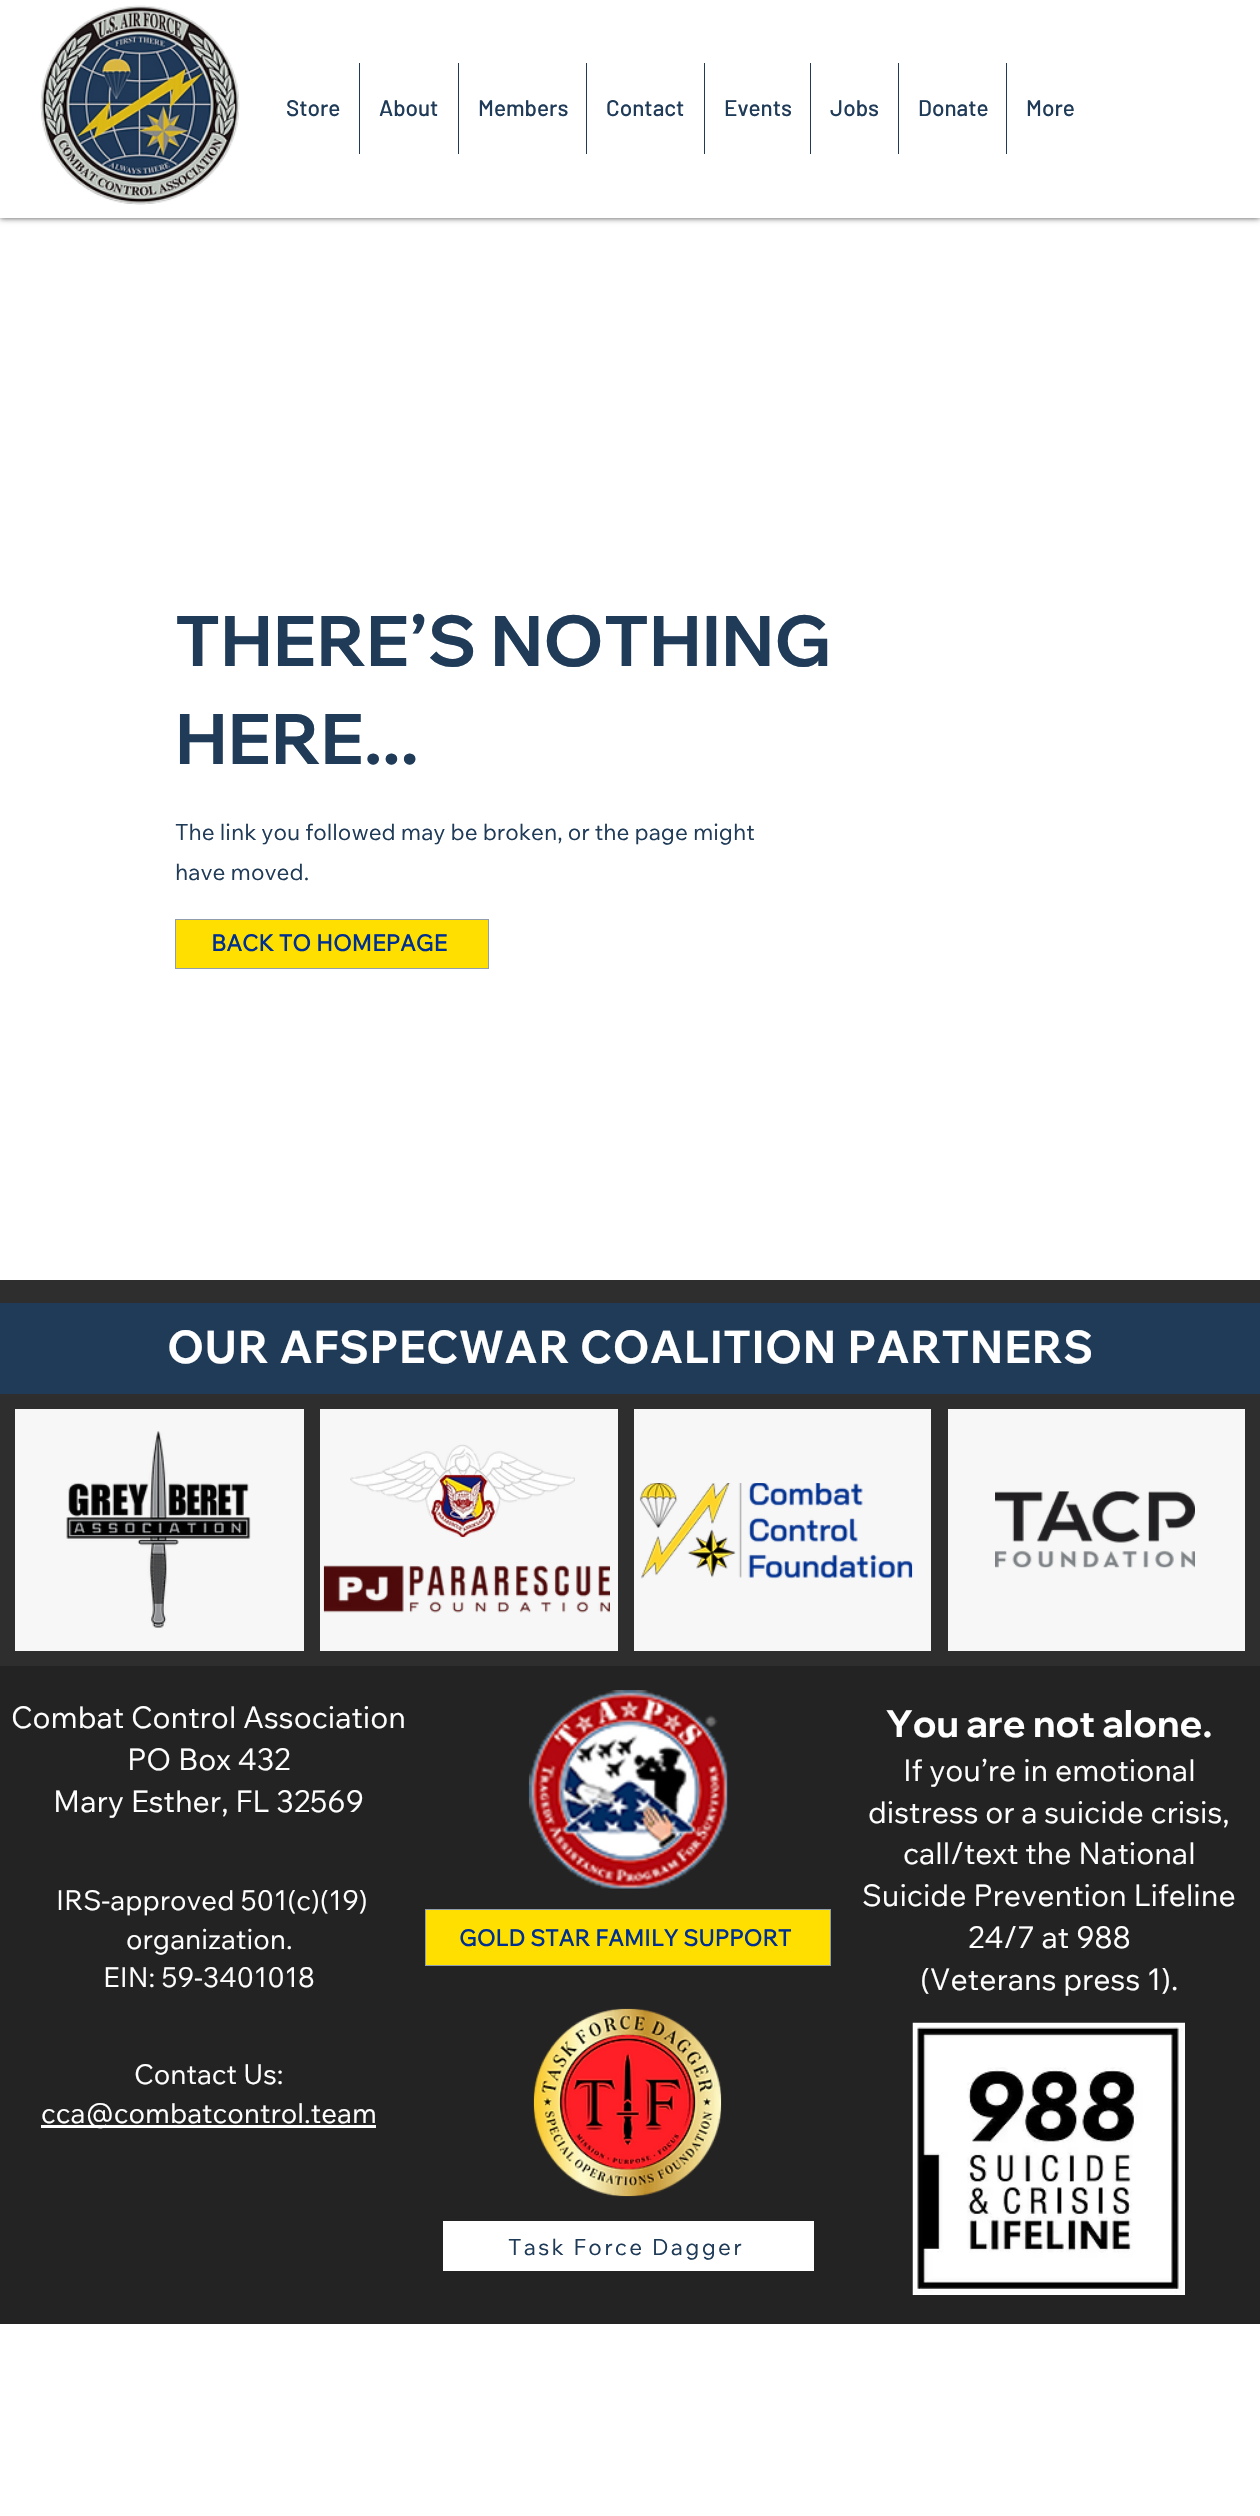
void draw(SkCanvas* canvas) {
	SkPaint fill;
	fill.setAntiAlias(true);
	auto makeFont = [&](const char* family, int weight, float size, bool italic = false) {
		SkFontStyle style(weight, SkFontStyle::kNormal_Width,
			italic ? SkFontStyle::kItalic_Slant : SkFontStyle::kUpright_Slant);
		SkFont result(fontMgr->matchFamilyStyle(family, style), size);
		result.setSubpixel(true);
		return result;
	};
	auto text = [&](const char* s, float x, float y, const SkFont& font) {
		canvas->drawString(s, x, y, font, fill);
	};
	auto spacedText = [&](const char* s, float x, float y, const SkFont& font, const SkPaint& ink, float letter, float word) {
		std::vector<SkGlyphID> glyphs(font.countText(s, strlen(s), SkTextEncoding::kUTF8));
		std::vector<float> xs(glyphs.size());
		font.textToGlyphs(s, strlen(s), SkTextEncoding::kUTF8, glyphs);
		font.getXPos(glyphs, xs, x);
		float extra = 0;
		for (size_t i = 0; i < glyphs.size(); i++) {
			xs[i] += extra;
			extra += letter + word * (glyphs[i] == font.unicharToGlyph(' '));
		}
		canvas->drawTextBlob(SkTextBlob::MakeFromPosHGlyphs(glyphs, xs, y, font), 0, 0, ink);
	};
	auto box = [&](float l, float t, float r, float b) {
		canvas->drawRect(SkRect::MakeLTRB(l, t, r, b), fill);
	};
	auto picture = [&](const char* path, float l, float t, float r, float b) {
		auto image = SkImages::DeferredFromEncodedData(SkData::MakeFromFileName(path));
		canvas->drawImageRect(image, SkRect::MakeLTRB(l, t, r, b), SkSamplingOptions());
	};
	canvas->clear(0xFFFFFFFF);
	fill.setColor(0xB3000000);
	fill.setMaskFilter(SkMaskFilter::MakeBlur(kNormal_SkBlurStyle, 3));
	canvas->drawRect(SkRect::MakeLTRB(0, 0, 1260, 218), fill);
	fill.setMaskFilter(nullptr);
	fill.setColor(0xFFFFFFFF);
	box(0, 0, 1260, 218);
	picture("image0.png", 40, 5, 240, 205);
	fill.setColor(0xFF1F3B58);
	box(359, 63, 360, 154);
	box(458, 63, 459, 154);
	box(586, 63, 587, 154);
	box(704, 63, 705, 154);
	box(810, 63, 811, 154);
	box(898, 63, 899, 154);
	box(1006, 63, 1007, 154);
	fill.setColor(0xFFFFDF00);
	canvas->drawRect(SkRect::MakeLTRB(175.5f, 919.5f, 488.5f, 968.5f), fill);
	fill.setStyle(SkPaint::kStroke_Style);
	fill.setStrokeWidth(1);
	fill.setColor(0xFF8F9DAC);
	canvas->drawRect(SkRect::MakeLTRB(175.5f, 919.5f, 488.5f, 968.5f), fill);
	fill.setStyle(SkPaint::kFill_Style);
	fill.setColor(0xFF2F2E2E);
	box(0, 1280, 1260, 1666);
	fill.setColor(0xFF1F3B58);
	box(0, 1303, 1260, 1394);
	fill.setColor(0xFFF7F7F7);
	box(15, 1409, 304, 1651);
	picture("image1.png", 66, 1431, 251, 1628);
	box(320, 1409, 618, 1651);
	picture("image2.png", 350, 1444, 575, 1538);
	picture("image3.png", 323, 1565, 610, 1613);
	box(634, 1409, 931, 1651);
	picture("image4.png", 639, 1483, 913, 1579);
	box(948, 1409, 1245, 1651);
	picture("image5.png", 995, 1491, 1195, 1568);
	fill.setColor(0xFF242323);
	box(0, 1666, 1260, 2324);
	fill.setColor(0xFFFFFFFF);
	box(41, 2125, 376, 2128);
	picture("image6.png", 912, 2022, 1185, 2295);
	picture("image7.png", 528, 1690, 728, 1889);
	fill.setColor(0xFFFFDF00);
	canvas->drawRect(SkRect::MakeLTRB(425.5f, 1909.5f, 830.5f, 1965.5f), fill);
	fill.setStyle(SkPaint::kStroke_Style);
	fill.setColor(0xFF8F9DAC);
	canvas->drawRect(SkRect::MakeLTRB(425.5f, 1909.5f, 830.5f, 1965.5f), fill);
	picture("image8.png", 533, 2008, 722, 2197);
	fill.setStyle(SkPaint::kFill_Style);
	fill.setColor(0xFFFFFFFF);
	box(443, 2221, 814, 2271);
	auto font1 = makeFont("Barlow", 500, 22.5f);
	fill.setColor(0xFF1F3B58);
	text("Store", 286, 116, font1);
	text("About", 379, 116, font1);
	text("Members", 478, 116, font1);
	text("Contact", 606, 116, font1);
	text("Events", 724, 116, font1);
	text("Jobs", 830, 116, font1);
	text("Donate", 918, 116, font1);
	text("More", 1026, 116, font1);
	auto font2 = makeFont("Wix Madefor Display", 700, 70);
	text("THERE’S NOTHING", 175, 666, font2);
	text("HERE...", 175, 764, font2);
	auto font3 = makeFont("Wix Madefor Text", 400, 22.5f);
	text("The link you followed may be broken, or the page might", 175, 840, font3);
	text("have moved.", 175, 880, font3);
	auto font4 = makeFont("Wix Madefor Text", 700, 22.5f);
	fill.setColor(0xFF00308F);
	text("BACK TO HOMEPAGE", 211, 951, font4);
	auto font5 = makeFont("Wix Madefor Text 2", 700, 45);
	fill.setColor(0xFFFFFFFF);
	text("OUR AFSPECWAR COALITION PARTNERS", 167, 1363, font5);
	auto font6 = makeFont("Wix Madefor Text", 400, 30);
	text("Combat Control Association", 11, 1728, font6);
	text("PO Box 432", 127, 1770, font6);
	text("Mary Esther, FL 32569", 53, 1812, font6);
	auto font7 = makeFont("Wix Madefor Text", 400, 27.5f);
	text("IRS-approved 501(c)(19)", 56, 1910, font7);
	text("organization.", 126, 1949, font7);
	text("EIN: 59-3401018", 103, 1987, font7);
	text("Contact Us:", 134, 2084, font7);
	text("cca@combatcontrol.team", 41, 2123, font7);
	auto font8 = makeFont("Wix Madefor Display", 700, 37.5f);
	text("You are not alone.", 886, 1737, font8);
	text("If you’re in emotional", 903, 1781, font6);
	text("distress or a suicide crisis,", 868, 1823, font6);
	text("call/text the National", 903, 1864, font6);
	text("Suicide Prevention Lifeline", 862, 1906, font6);
	text("24/7 at 988", 968, 1948, font6);
	text("(Veterans press 1).", 920, 1990, font6);
	fill.setColor(0xFF00308F);
	text("GOLD STAR FAMILY SUPPORT", 459, 1946, font4);
	fill.setColor(0xFF1F3B58);
	spacedText("Task Force Dagger", 508, 2255, font3, fill, 2.25f, 0);
}
